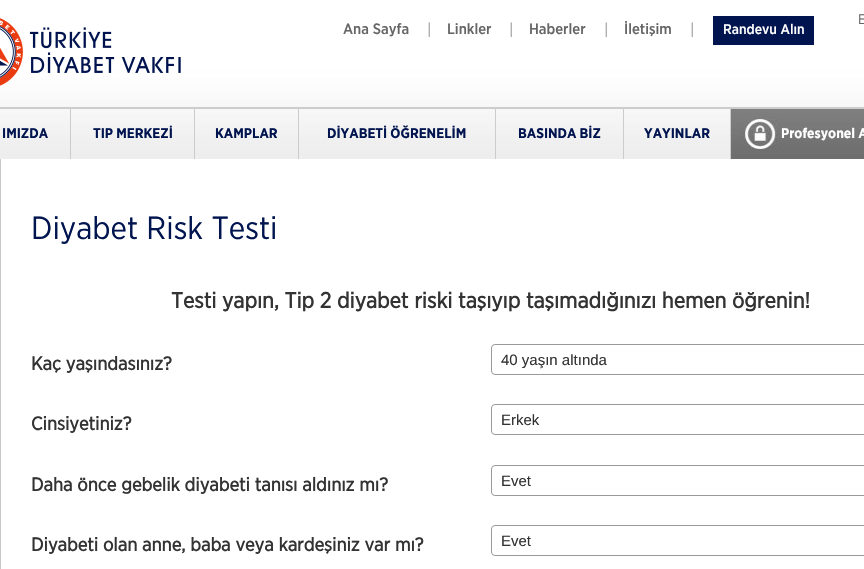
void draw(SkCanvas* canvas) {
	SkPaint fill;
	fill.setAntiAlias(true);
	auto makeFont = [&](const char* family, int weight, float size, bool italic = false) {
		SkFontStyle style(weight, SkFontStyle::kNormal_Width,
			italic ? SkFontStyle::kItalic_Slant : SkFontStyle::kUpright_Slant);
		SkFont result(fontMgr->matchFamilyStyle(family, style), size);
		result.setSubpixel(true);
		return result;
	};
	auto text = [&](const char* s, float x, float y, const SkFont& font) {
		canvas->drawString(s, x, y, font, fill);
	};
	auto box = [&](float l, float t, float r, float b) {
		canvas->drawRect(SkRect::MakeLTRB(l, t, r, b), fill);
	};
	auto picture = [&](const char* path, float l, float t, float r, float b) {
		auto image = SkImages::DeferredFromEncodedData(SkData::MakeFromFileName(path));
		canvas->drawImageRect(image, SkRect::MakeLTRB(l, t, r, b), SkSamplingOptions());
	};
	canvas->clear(0xFFFFFFFF);
	picture("image0.png", 0, 0, 864, 107);
	picture("image1.png", 0, 18, 181, 86);
	fill.setColor(0xFF00144F);
	box(713, 16, 814, 45);
	fill.setColor(0xFFCCCCCC);
	box(0, 107, 864, 159);
	picture("image2.png", 0, 109, 70, 159);
	picture("image3.png", 71, 109, 194, 159);
	picture("image4.png", 195, 109, 298, 159);
	picture("image5.png", 299, 109, 495, 159);
	picture("image6.png", 496, 109, 623, 159);
	picture("image7.png", 624, 109, 730, 159);
	picture("image8.png", 731, 109, 864, 159);
	fill.setColor(0xFFC9C9C9);
	box(0, 159, 1, 569);
	fill.setStyle(SkPaint::kStroke_Style);
	fill.setStrokeWidth(1);
	fill.setColor(0xFF999999);
	canvas->drawRoundRect(SkRect::MakeLTRB(491.5f, 344.5f, 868.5f, 374.5f), 3.5f, 3.5f, fill);
	canvas->drawRoundRect(SkRect::MakeLTRB(491.5f, 404.5f, 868.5f, 434.5f), 3.5f, 3.5f, fill);
	canvas->drawRoundRect(SkRect::MakeLTRB(491.5f, 465.5f, 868.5f, 495.5f), 3.5f, 3.5f, fill);
	canvas->drawRoundRect(SkRect::MakeLTRB(491.5f, 525.5f, 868.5f, 555.5f), 3.5f, 3.5f, fill);
	auto font1 = makeFont("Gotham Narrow", 400, 14);
	fill.setStyle(SkPaint::kFill_Style);
	fill.setColor(0xFF666666);
	text("E", 858, 24, font1);
	auto font2 = makeFont("Gotham Narrow", 500, 15);
	text("Ana Sayfa", 343, 34, font2);
	auto font3 = makeFont("Gotham Narrow", 400, 16);
	fill.setColor(0xFF999999);
	text("|", 427, 35, font3);
	fill.setColor(0xFF666666);
	text("Linkler", 447, 34, font2);
	fill.setColor(0xFF999999);
	text("|", 509, 35, font3);
	fill.setColor(0xFF666666);
	text("Haberler", 529, 34, font2);
	fill.setColor(0xFF999999);
	text("|", 604, 35, font3);
	fill.setColor(0xFF666666);
	text("İletişim", 624, 34, font2);
	fill.setColor(0xFF999999);
	text("|", 690, 35, font3);
	auto font4 = makeFont("Gotham Narrow", 500, 14);
	fill.setColor(0xFFFFFFFF);
	text("Randevu Alın", 723, 34, font4);
	auto font5 = makeFont("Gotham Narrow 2", 700, 14);
	fill.setColor(0xFF00144F);
	text("IMIZDA", 2, 138, font5);
	text("TIP MERKEZİ", 93, 138, font5);
	text("KAMPLAR", 215, 138, font5);
	text("DİYABETİ ÖĞRENELİM", 327, 138, font5);
	text("BASINDA BİZ", 518, 138, font5);
	text("YAYINLAR", 644, 138, font5);
	fill.setColor(0xFFFFFFFF);
	text("Profesyonel A", 781, 138, font5);
	auto font6 = makeFont("Gotham Narrow", 400, 32);
	fill.setColor(0xFF00144F);
	text("Diyabet Risk Testi", 31, 239, font6);
	auto font7 = makeFont("Gotham Narrow", 700, 22);
	fill.setColor(0xFF333333);
	text("Testi yapın, Tip 2 diyabet riski taşıyıp taşımadığınızı hemen öğrenin!", 171, 308, font7);
	auto font8 = makeFont("Gotham Narrow", 700, 18.75f);
	text("Kaç yaşındasınız?", 31, 370, font8);
	auto font9 = makeFont("Liberation Sans", 400, 15);
	text("40 yaşın altında", 501, 365, font9);
	text("Cinsiyetiniz?", 31, 430, font8);
	text("Erkek", 501, 425, font9);
	text("Daha önce gebelik diyabeti tanısı aldınız mı?", 31, 491, font8);
	text("Evet", 501, 486, font9);
	text("Diyabeti olan anne, baba veya kardeşiniz var mı?", 31, 551, font8);
	text("Evet", 501, 546, font9);
}
